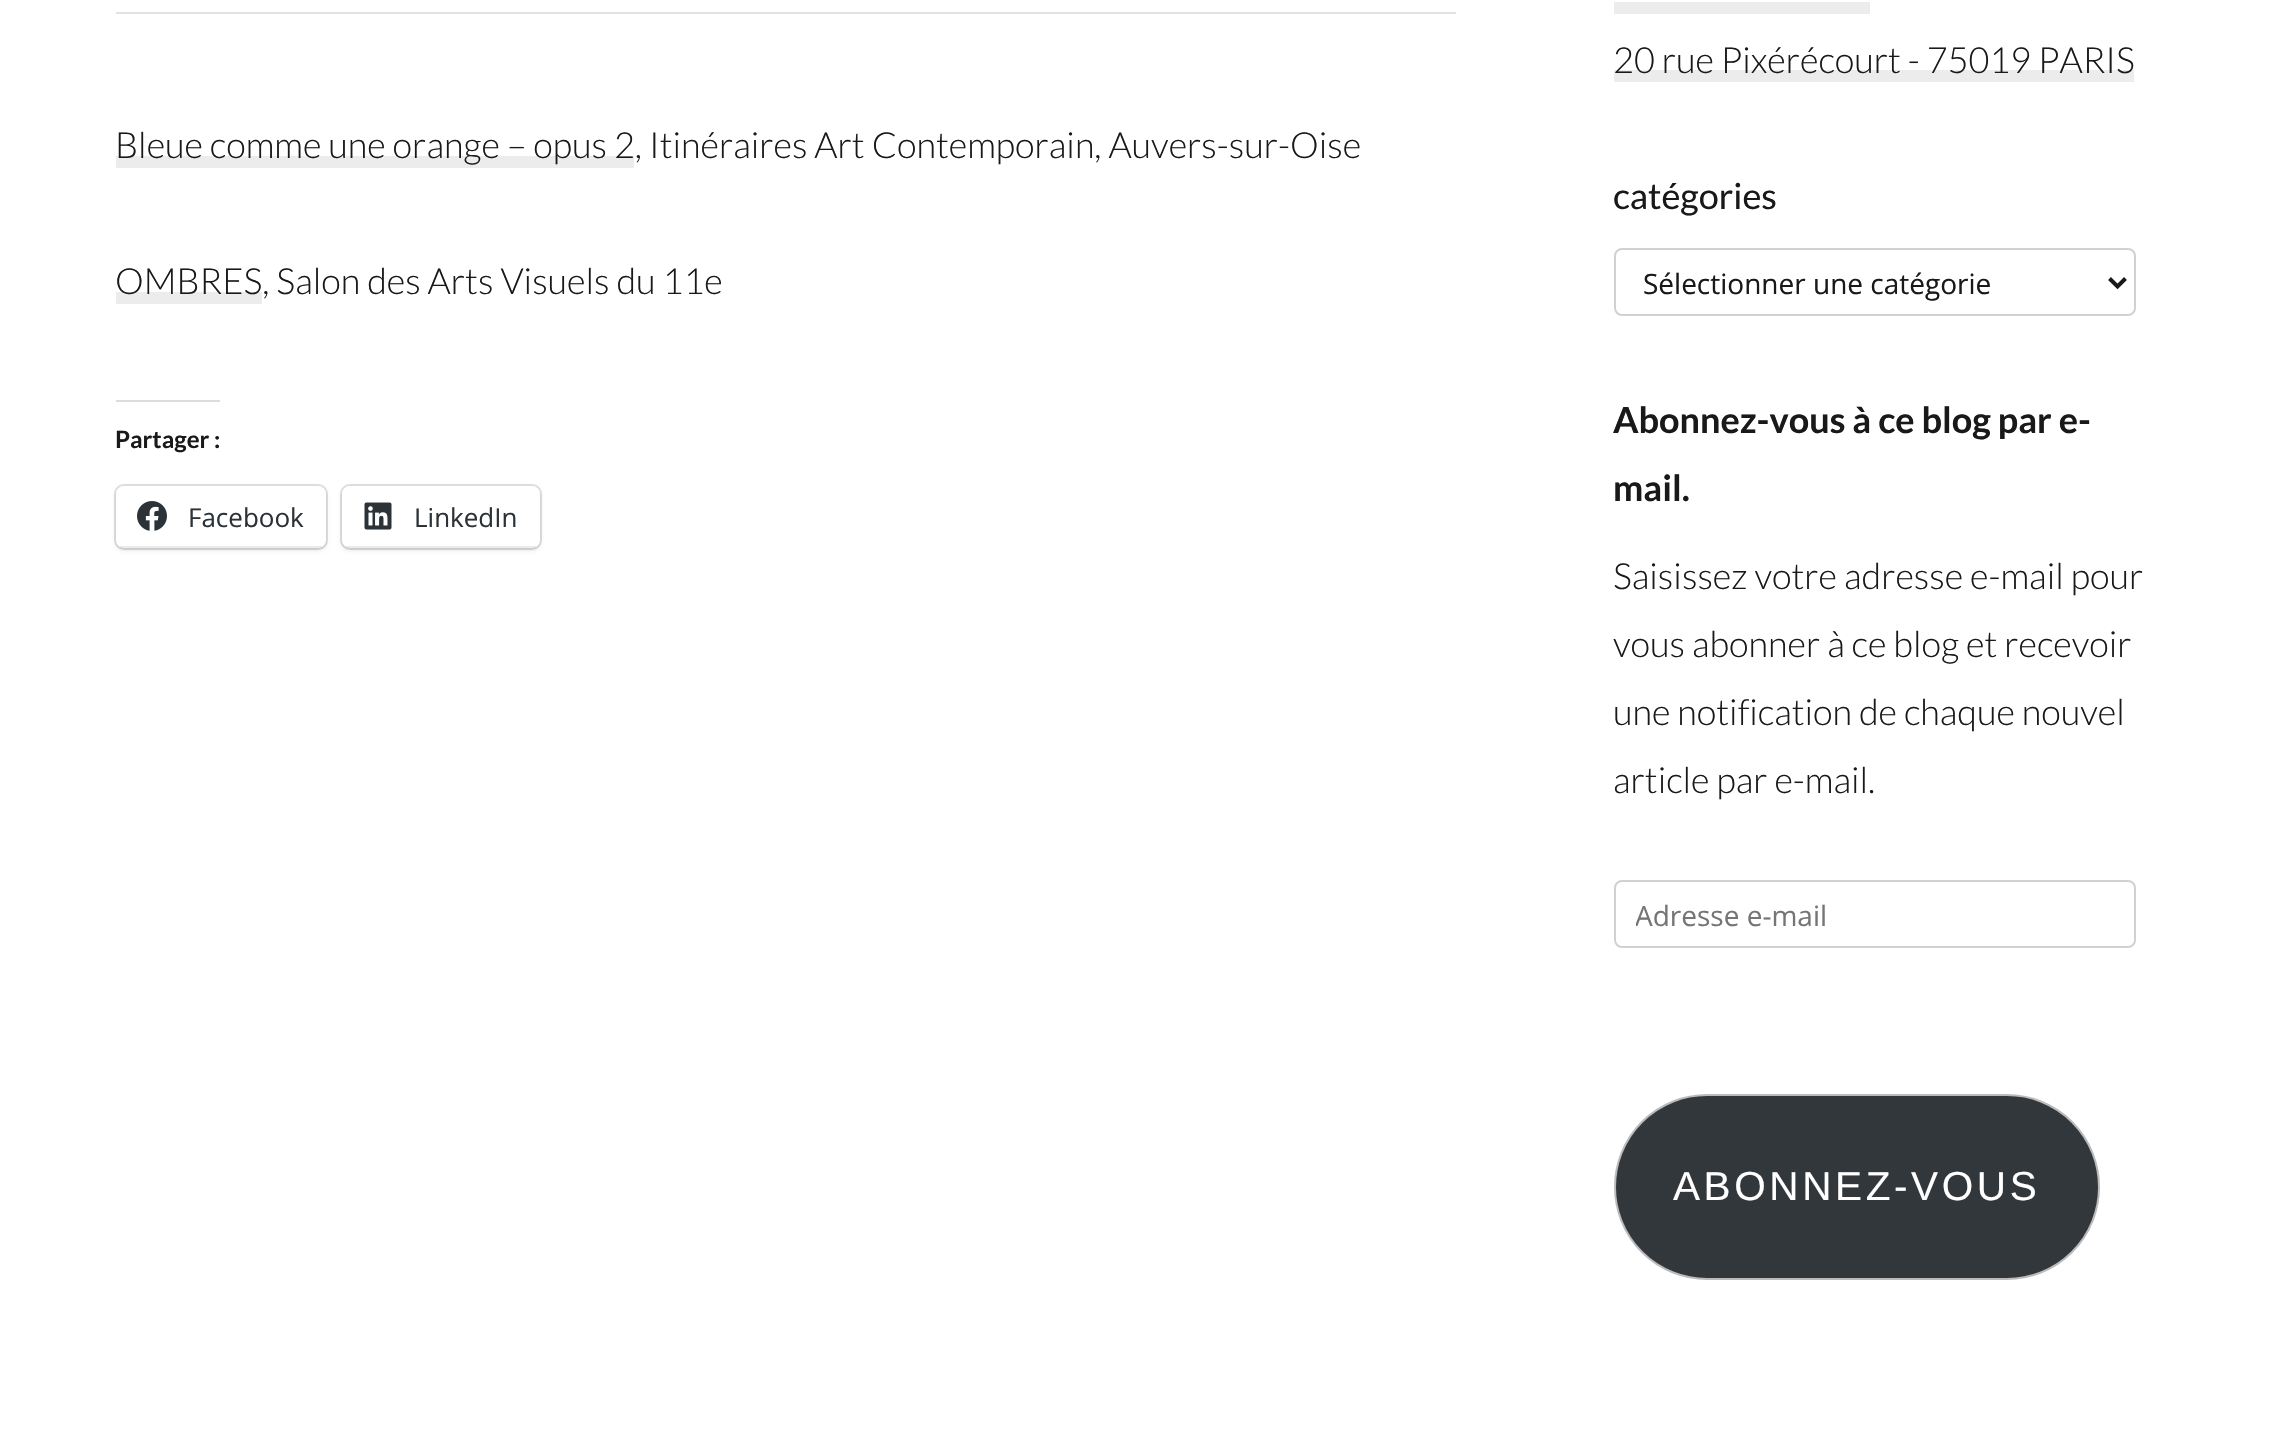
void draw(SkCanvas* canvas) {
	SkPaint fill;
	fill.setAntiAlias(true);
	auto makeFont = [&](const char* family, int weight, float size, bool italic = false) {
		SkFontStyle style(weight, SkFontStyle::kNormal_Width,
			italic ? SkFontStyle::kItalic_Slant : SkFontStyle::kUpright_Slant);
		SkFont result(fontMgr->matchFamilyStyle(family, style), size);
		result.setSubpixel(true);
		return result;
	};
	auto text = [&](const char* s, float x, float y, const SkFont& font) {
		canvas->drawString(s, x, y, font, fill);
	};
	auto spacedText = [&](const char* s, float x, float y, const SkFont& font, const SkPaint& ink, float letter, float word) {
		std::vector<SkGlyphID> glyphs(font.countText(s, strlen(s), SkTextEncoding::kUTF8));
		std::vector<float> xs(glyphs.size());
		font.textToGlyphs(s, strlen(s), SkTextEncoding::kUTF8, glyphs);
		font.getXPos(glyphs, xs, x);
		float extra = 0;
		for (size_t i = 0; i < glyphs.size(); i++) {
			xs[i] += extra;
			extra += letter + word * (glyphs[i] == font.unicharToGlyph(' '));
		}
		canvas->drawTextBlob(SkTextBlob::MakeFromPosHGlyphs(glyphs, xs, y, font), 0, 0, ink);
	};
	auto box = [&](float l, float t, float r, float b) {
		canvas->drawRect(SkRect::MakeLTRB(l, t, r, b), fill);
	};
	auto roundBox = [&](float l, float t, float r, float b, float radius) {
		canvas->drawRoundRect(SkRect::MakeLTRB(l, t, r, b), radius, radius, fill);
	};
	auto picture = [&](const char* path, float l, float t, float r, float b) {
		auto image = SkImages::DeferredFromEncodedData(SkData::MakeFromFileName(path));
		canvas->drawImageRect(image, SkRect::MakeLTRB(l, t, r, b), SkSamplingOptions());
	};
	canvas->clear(0xFFFFFFFF);
	fill.setColor(0xFFE1E1E1);
	box(116, 12, 1456, 14);
	fill.setColor(0xFFECECEC);
	box(116, 156, 634, 168);
	box(116, 292, 262, 304);
	fill.setColor(0xFFDCDCDE);
	box(116, 400, 220, 402);
	fill.setStyle(SkPaint::kStroke_Style);
	fill.setStrokeWidth(2);
	fill.setColor(0xFFE0E0E0);
	canvas->drawRoundRect(SkRect::MakeLTRB(115, 485, 327, 549), 9, 9, fill);
	fill.setStyle(SkPaint::kFill_Style);
	fill.setColor(0x1F000000);
	fill.setMaskFilter(SkMaskFilter::MakeBlur(kNormal_SkBlurStyle, 2));
	canvas->drawRoundRect(SkRect::MakeLTRB(116, 488, 326, 550), 8, 8, fill);
	fill.setMaskFilter(nullptr);
	fill.setColor(0xFFFFFFFF);
	roundBox(116, 486, 326, 548, 8);
	fill.setColor(0x4DBEBEBE);
	box(120, 546, 322, 548);
	picture("image0.png", 137, 501, 167, 531);
	fill.setStyle(SkPaint::kStroke_Style);
	fill.setColor(0xFFE0E0E0);
	canvas->drawRoundRect(SkRect::MakeLTRB(341, 485, 541, 549), 9, 9, fill);
	fill.setStyle(SkPaint::kFill_Style);
	fill.setColor(0x1F000000);
	fill.setMaskFilter(SkMaskFilter::MakeBlur(kNormal_SkBlurStyle, 2));
	canvas->drawRoundRect(SkRect::MakeLTRB(342, 488, 540, 550), 8, 8, fill);
	fill.setMaskFilter(nullptr);
	fill.setColor(0xFFFFFFFF);
	roundBox(342, 486, 540, 548, 8);
	fill.setColor(0x4DBEBEBE);
	box(346, 546, 536, 548);
	picture("image1.png", 364, 502, 392, 530);
	fill.setColor(0xFFECECEC);
	box(1614, 2, 1870, 14);
	box(1614, 70, 2134, 82);
	fill.setStyle(SkPaint::kStroke_Style);
	fill.setColor(0xFFD1D1D1);
	canvas->drawRoundRect(SkRect::MakeLTRB(1615, 249, 2135, 315), 7, 7, fill);
	fill.setStrokeWidth(4);
	fill.setColor(0xFF191919);
	canvas->drawPath(SkPathBuilder().moveTo(2109.5f, 278.5f).lineTo(2117.5f, 286.5f).lineTo(2125.5f, 278.5f).detach(), fill);
	fill.setStrokeWidth(2);
	fill.setColor(0xFFD1D1D1);
	canvas->drawRoundRect(SkRect::MakeLTRB(1615, 881, 2135, 947), 7, 7, fill);
	fill.setStyle(SkPaint::kFill_Style);
	fill.setColor(0xFF32373C);
	canvas->drawRoundRect(SkRect::MakeLTRB(1615, 1095, 2099, 1279), 92, 92, fill);
	fill.setStyle(SkPaint::kStroke_Style);
	fill.setColor(0xFFBBBBBB);
	canvas->drawRoundRect(SkRect::MakeLTRB(1615, 1095, 2099, 1279), 92, 92, fill);
	auto font1 = makeFont("Lato", 300, 36);
	fill.setStyle(SkPaint::kFill_Style);
	fill.setColor(0xFF191919);
	text("Bleue comme une orange – opus 2, Itinéraires Art Contemporain, Auvers-sur-Oise", 115, 158, font1);
	text("OMBRES, Salon des Arts Visuels du 11e", 115, 294, font1);
	auto font2 = makeFont("Lato", 700, 24);
	text("Partager :", 115, 448, font2);
	auto font3 = makeFont("Open Sans", 400, 26);
	fill.setColor(0xFF2C3338);
	text("Facebook", 188, 527, font3);
	text("LinkedIn", 414, 527, font3);
	fill.setColor(0xFF191919);
	text("20 rue Pixérécourt - 75019 PARIS", 1613, 73, font1);
	auto font4 = makeFont("Lato", 400, 36);
	text("catégories", 1613, 209, font4);
	auto font5 = makeFont("Open Sans", 400, 28);
	text("Sélectionner une catégorie", 1643, 294, font5);
	auto font6 = makeFont("Lato", 700, 36);
	text("Abonnez-vous à ce blog par e-", 1613, 433, font6);
	text("mail.", 1613, 501, font6);
	text("Saisissez votre adresse e-mail pour", 1613, 589, font1);
	text("vous abonner à ce blog et recevoir", 1613, 657, font1);
	text("une notification de chaque nouvel", 1613, 725, font1);
	text("article par e-mail.", 1613, 793, font1);
	canvas->save();
	canvas->clipRect(SkRect::MakeLTRB(1636, 896, 2114, 934));
	fill.setColor(0xFF757575);
	text("Adresse e-mail", 1635, 926, font5);
	canvas->restore();
	auto font7 = makeFont("Liberation Sans", 400, 40.5f);
	fill.setColor(0xFFFFFFFF);
	spacedText("ABONNEZ-VOUS", 1673, 1200, font7, fill, 3.6f, 0);
}
